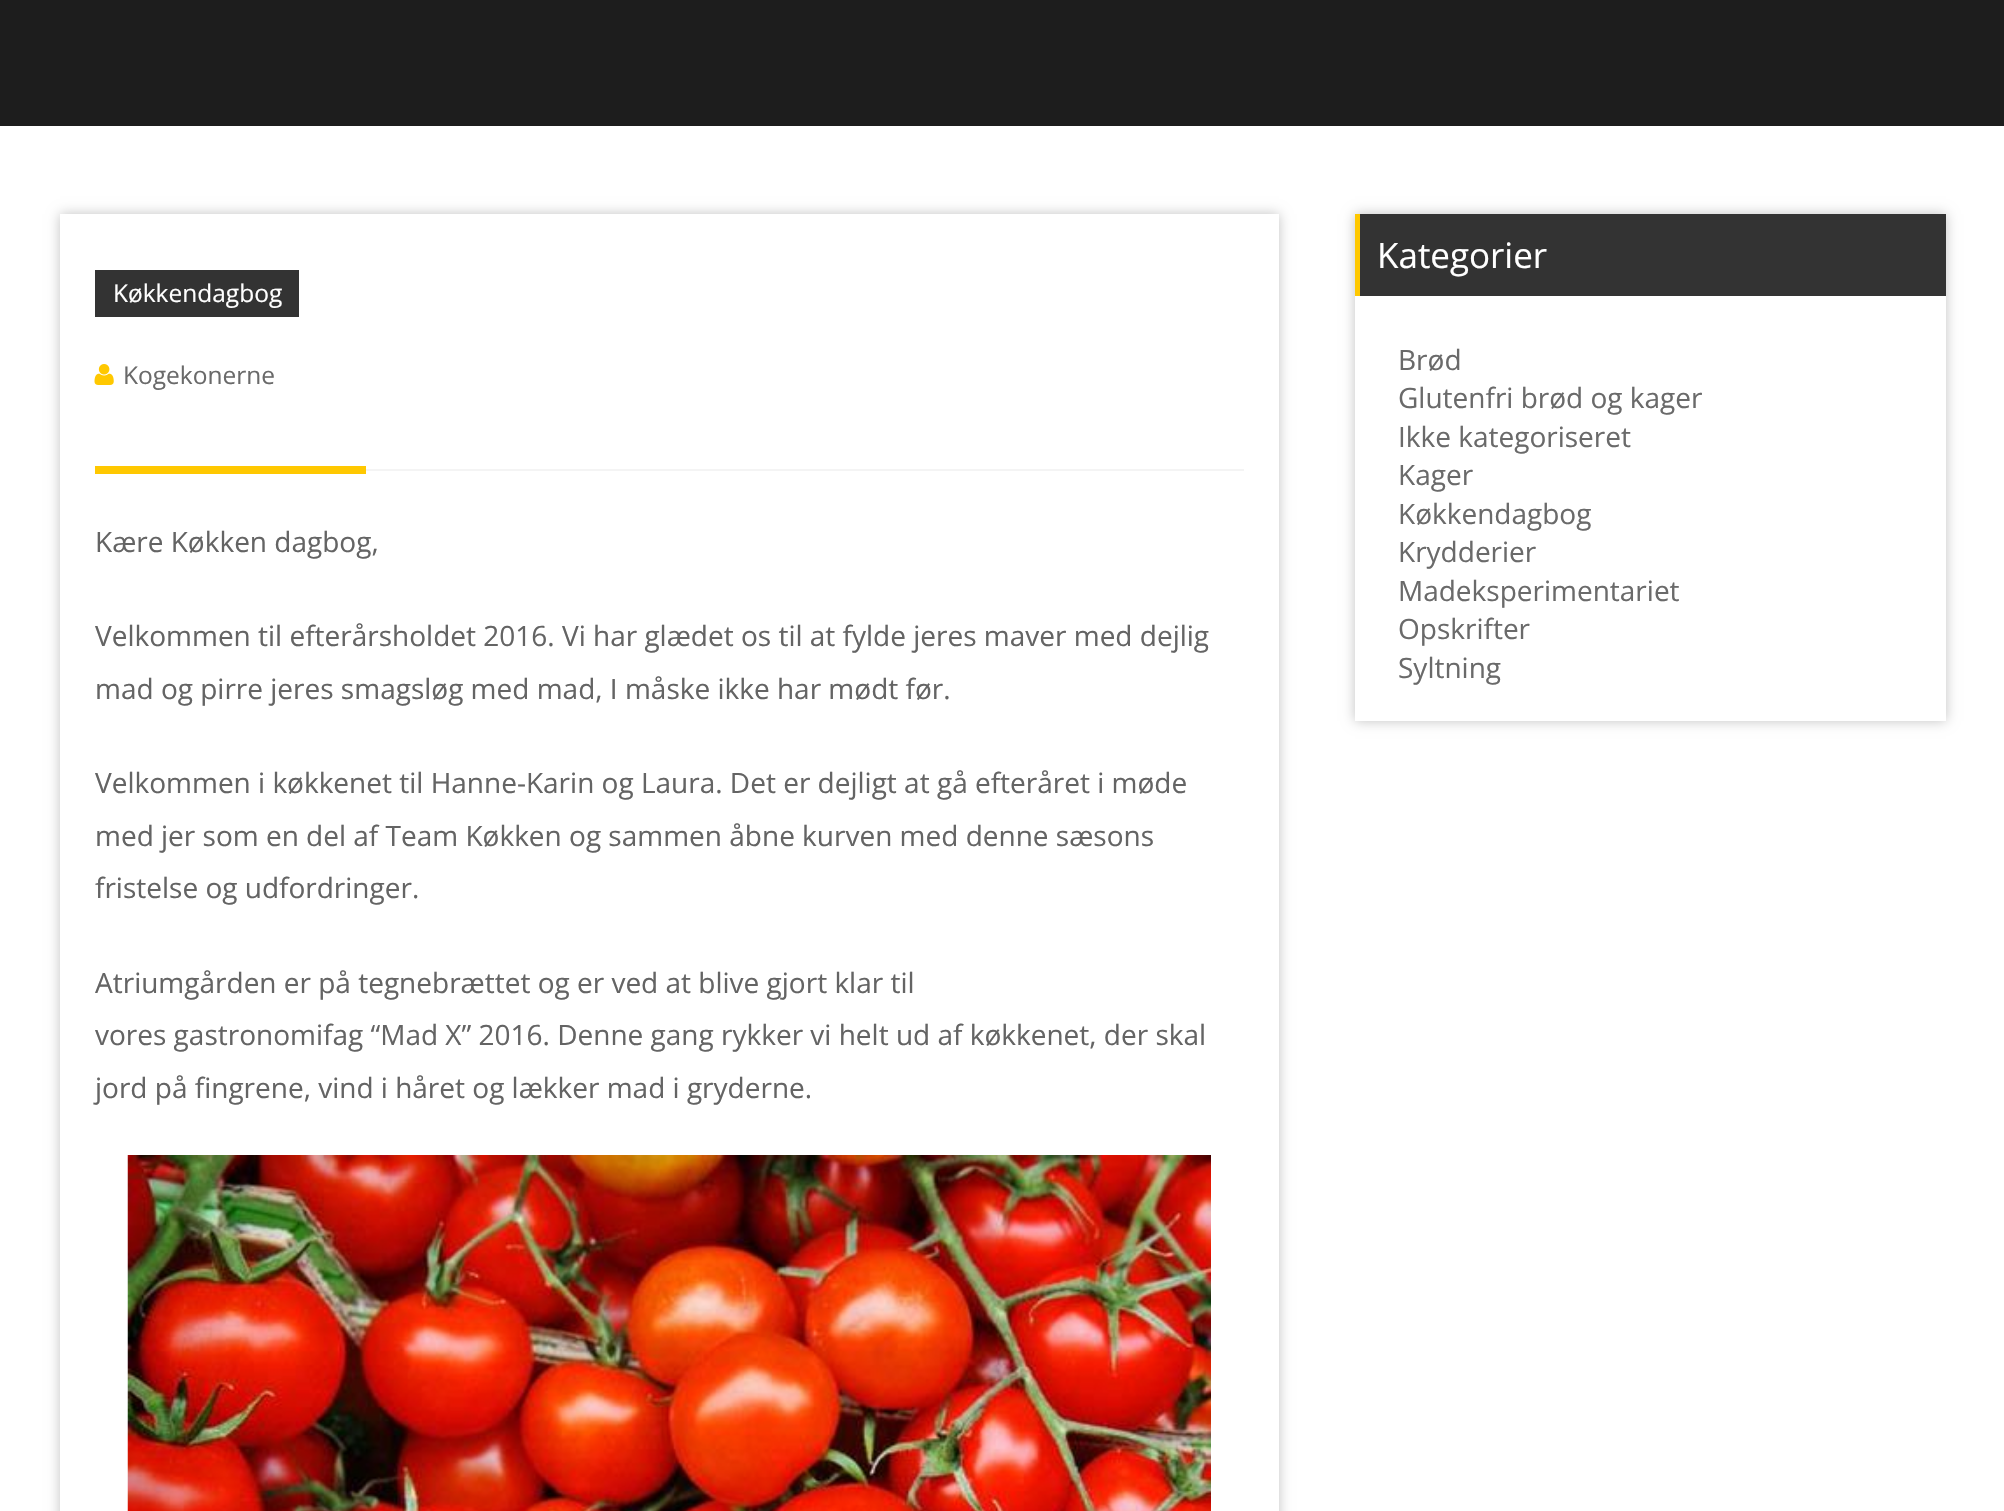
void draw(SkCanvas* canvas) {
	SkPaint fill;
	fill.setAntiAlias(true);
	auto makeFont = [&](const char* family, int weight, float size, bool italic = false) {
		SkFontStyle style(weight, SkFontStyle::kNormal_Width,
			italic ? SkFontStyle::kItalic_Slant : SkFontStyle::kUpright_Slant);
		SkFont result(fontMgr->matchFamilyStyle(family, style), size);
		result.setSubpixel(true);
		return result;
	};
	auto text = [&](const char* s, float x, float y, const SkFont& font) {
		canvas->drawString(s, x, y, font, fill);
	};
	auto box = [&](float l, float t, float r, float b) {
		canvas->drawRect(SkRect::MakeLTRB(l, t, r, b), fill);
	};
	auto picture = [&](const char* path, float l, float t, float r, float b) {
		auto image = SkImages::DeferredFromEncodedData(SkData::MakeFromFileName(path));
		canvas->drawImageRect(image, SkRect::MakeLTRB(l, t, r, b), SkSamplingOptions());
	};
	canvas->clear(0xFFFFFFFF);
	fill.setColor(0xFF1D1D1D);
	box(0, 0, 2004, 126);
	canvas->save();
	canvas->clipPath(SkPathBuilder(SkPathFillType::kEvenOdd).moveTo(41, 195).lineTo(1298, 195).lineTo(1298, 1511).lineTo(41, 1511).close().moveTo(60, 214).lineTo(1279, 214).lineTo(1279, 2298).lineTo(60, 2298).close().detach(), true);
	fill.setColor(0xFFC2C2C2);
	fill.setMaskFilter(SkMaskFilter::MakeBlur(kNormal_SkBlurStyle, 6));
	canvas->drawRect(SkRect::MakeLTRB(60, 214, 1279, 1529), fill);
	fill.setMaskFilter(nullptr);
	canvas->restore();
	fill.setColor(0xFF333333);
	box(95, 270, 299, 317);
	picture("image0.png", 94, 364, 114, 385);
	fill.setColor(0xFFFFC800);
	box(95, 466, 366, 474);
	fill.setColor(0xFFF4F4F4);
	box(366, 469, 1244, 471);
	picture("image1.png", 127, 1155, 1211, 1511);
	canvas->save();
	canvas->clipPath(SkPathBuilder(SkPathFillType::kEvenOdd).moveTo(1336, 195).lineTo(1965, 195).lineTo(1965, 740).lineTo(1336, 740).close().moveTo(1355, 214).lineTo(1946, 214).lineTo(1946, 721).lineTo(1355, 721).close().detach(), true);
	fill.setColor(0xFFC2C2C2);
	fill.setMaskFilter(SkMaskFilter::MakeBlur(kNormal_SkBlurStyle, 6));
	canvas->drawRect(SkRect::MakeLTRB(1355, 214, 1946, 721), fill);
	fill.setMaskFilter(nullptr);
	canvas->restore();
	fill.setColor(0xFF333333);
	box(1360, 214, 1946, 296);
	fill.setColor(0xFFFFC800);
	box(1355, 214, 1360, 296);
	auto font1 = makeFont("Open Sans", 400, 24.5f);
	fill.setColor(0xFFFFFFFF);
	text("Køkkendagbog", 113, 302, font1);
	fill.setColor(0xFF6A6A6A);
	text("Kogekonerne", 123, 384, font1);
	auto font2 = makeFont("Open Sans", 400, 28);
	fill.setColor(0xFF646464);
	text("Kære Køkken dagbog,", 95, 552, font2);
	text("Velkommen til efterårsholdet 2016. Vi har glædet os til at fylde jeres maver med dejlig", 95, 646, font2);
	text("mad og pirre jeres smagsløg med mad, I måske ikke har mødt før.", 95, 699, font2);
	text("Velkommen i køkkenet til Hanne-Karin og Laura. Det er dejligt at gå efteråret i møde", 95, 793, font2);
	text("med jer som en del af Team Køkken og sammen åbne kurven med denne sæsons", 95, 846, font2);
	text("fristelse og udfordringer.", 95, 898, font2);
	text("Atriumgården er på tegnebrættet og er ved at blive gjort klar til", 95, 993, font2);
	text("vores gastronomifag “Mad X” 2016. Denne gang rykker vi helt ud af køkkenet, der skal", 95, 1045, font2);
	text("jord på fingrene, vind i håret og lækker mad i gryderne.", 95, 1098, font2);
	auto font3 = makeFont("Open Sans", 400, 35);
	fill.setColor(0xFFFFFFFF);
	text("Kategorier", 1377, 268, font3);
	fill.setColor(0xFF6A6A6A);
	text("Brød", 1398, 370, font2);
	text("Glutenfri brød og kager", 1398, 408, font2);
	text("Ikke kategoriseret", 1398, 447, font2);
	text("Kager", 1398, 485, font2);
	text("Køkkendagbog", 1398, 524, font2);
	text("Krydderier", 1398, 562, font2);
	text("Madeksperimentariet", 1398, 601, font2);
	text("Opskrifter", 1398, 639, font2);
	text("Syltning", 1398, 678, font2);
}
